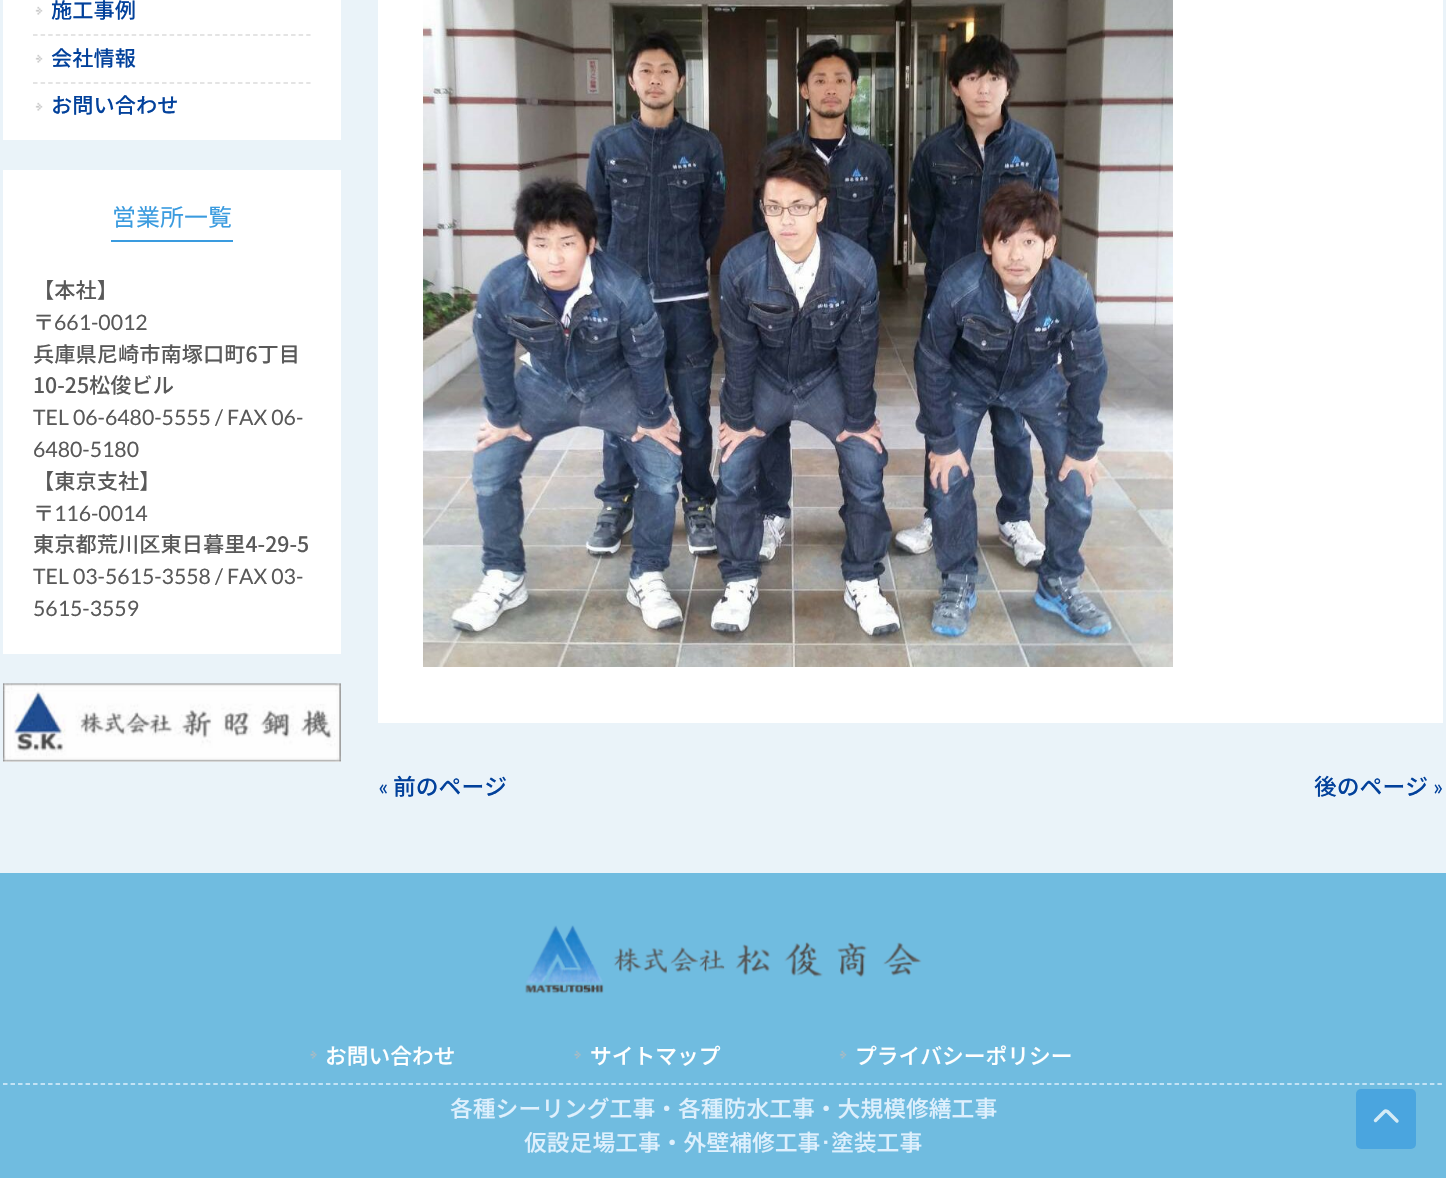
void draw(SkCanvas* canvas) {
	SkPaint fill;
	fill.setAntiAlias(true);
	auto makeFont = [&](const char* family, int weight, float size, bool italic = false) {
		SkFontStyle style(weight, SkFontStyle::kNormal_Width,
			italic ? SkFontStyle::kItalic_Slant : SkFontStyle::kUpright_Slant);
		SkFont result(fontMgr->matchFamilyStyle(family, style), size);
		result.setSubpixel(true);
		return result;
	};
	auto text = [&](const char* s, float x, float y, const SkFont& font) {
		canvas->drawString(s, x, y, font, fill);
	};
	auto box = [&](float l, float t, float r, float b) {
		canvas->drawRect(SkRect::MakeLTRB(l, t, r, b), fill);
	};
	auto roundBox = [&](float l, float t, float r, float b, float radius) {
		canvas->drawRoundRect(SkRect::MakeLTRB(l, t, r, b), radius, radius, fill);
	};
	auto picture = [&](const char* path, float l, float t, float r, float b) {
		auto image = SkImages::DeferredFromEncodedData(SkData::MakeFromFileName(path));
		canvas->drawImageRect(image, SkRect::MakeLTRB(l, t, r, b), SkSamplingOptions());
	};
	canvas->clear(0xFFEAF3F9);
	fill.setColor(0xFFFFFFFF);
	box(3, 0, 341, 140);
	picture("image0.png", 35, 6, 43, 15);
	fill.setStyle(SkPaint::kStroke_Style);
	fill.setStrokeWidth(1.5f);
	fill.setColor(0xFFDCDCDC);
	fill.setPathEffect(SkDashPathEffect::Make({{4.5f, 3.09f}}, 0));
	canvas->drawPath(SkPathBuilder().moveTo(33, 35).lineTo(310.5f, 35).detach(), fill);
	fill.setPathEffect(nullptr);
	picture("image0.png", 35, 54, 43, 63);
	fill.setPathEffect(SkDashPathEffect::Make({{4.5f, 3.09f}}, 0));
	canvas->drawPath(SkPathBuilder().moveTo(33, 83).lineTo(310.5f, 83).detach(), fill);
	fill.setPathEffect(nullptr);
	picture("image0.png", 35, 102, 43, 111);
	fill.setStyle(SkPaint::kFill_Style);
	fill.setColor(0xFFFFFFFF);
	box(3, 170, 341, 654);
	fill.setColor(0xFF3A9BDF);
	box(111, 240, 233, 242);
	fill.setColor(0xFFFFFFFF);
	box(3, 684, 341, 762);
	picture("image1.png", 3, 683, 341, 762);
	box(378, 0, 1443, 723);
	picture("image2.png", 423, 0, 1173, 667);
	fill.setColor(0xFF70BCE0);
	box(0, 873, 1446, 1178);
	picture("image3.png", 525, 925, 922, 994);
	picture("image4.png", 310, 1050, 317, 1059);
	picture("image5.png", 574, 1050, 581, 1059);
	picture("image6.png", 839, 1050, 847, 1059);
	fill.setStyle(SkPaint::kStroke_Style);
	fill.setColor(0xFFDEF0FD);
	fill.setPathEffect(SkDashPathEffect::Make({{4.5f, 3.01f}}, 0));
	canvas->drawPath(SkPathBuilder().moveTo(3, 1084).lineTo(1443, 1084).detach(), fill);
	fill.setPathEffect(nullptr);
	fill.setStyle(SkPaint::kFill_Style);
	fill.setColor(0xFF4AA5DF);
	roundBox(1356, 1089, 1416, 1149, 5);
	fill.setStyle(SkPaint::kStroke_Style);
	fill.setStrokeWidth(3.4f);
	fill.setStrokeCap(SkPaint::kRound_Cap);
	fill.setStrokeJoin(SkPaint::kBevel_Join);
	fill.setColor(0xFFD4EBF6);
	canvas->drawPath(SkPathBuilder().moveTo(1397, 1121).lineTo(1387.5f, 1111.5f).cubicTo(1386.5f, 1111, 1385, 1111, 1384.5f, 1111.5f).lineTo(1375.5f, 1120.5f).detach(), fill);
	auto font1 = makeFont("Noto Sans JP", 500, 21.25f);
	fill.setStyle(SkPaint::kFill_Style);
	fill.setColor(0xFF02419B);
	text("施工事例", 51, 18, font1);
	text("会社情報", 51, 66, font1);
	text("お問い合わせ", 51, 113, font1);
	auto font2 = makeFont("Noto Sans JP", 400, 24);
	fill.setColor(0xFF3A9BDF);
	text("営業所一覧", 112, 226, font2);
	fill.setColor(0xFF595959);
	text("【本社】", 33, 298, font1);
	text("〒", 33, 330, font1);
	auto font3 = makeFont("Lato", 400, 21.25f);
	text("661-0012", 54, 330, font3);
	text("兵庫県尼崎市南塚口町6丁目", 33, 362, font1);
	text("10-25松俊ビル", 33, 393, font1);
	text("TEL 06-6480-5555 / FAX 06-", 33, 425, font3);
	text("6480-5180", 33, 457, font3);
	text("【東京支社】", 33, 489, font1);
	text("〒", 33, 521, font1);
	text("116-0014", 54, 521, font3);
	text("東京都荒川区東日暮里4-29-5", 33, 552, font1);
	text("TEL 03-5615-3558 / FAX 03-", 33, 584, font3);
	text("5615-3559", 33, 616, font3);
	auto font4 = makeFont("Lato", 400, 22.8f);
	fill.setColor(0xFF02419B);
	text("«", 378, 795, font4);
	auto font5 = makeFont("Noto Sans JP", 500, 22.8f);
	text("前のページ", 393, 795, font5);
	text("後のページ", 1314, 795, font5);
	text("»", 1433, 795, font4);
	auto font6 = makeFont("Noto Sans JP", 500, 21.75f);
	fill.setColor(0xFFFFFFFF);
	text("お問い合わせ", 325, 1064, font6);
	text("サイトマップ", 590, 1064, font6);
	text("プライバシーポリシー", 855, 1064, font6);
	fill.setColor(0xFFDEF0FD);
	text("各種シーリング工事・各種防水工事・大規模修繕工事", 450, 1117, font5);
	text("仮設足場工事・外壁補修工事", 524, 1151, font5);
	auto font7 = makeFont("IPAPGothic", 400, 22.8f);
	text("･", 820, 1151, font7);
	text("塗装工事", 831, 1151, font5);
}
